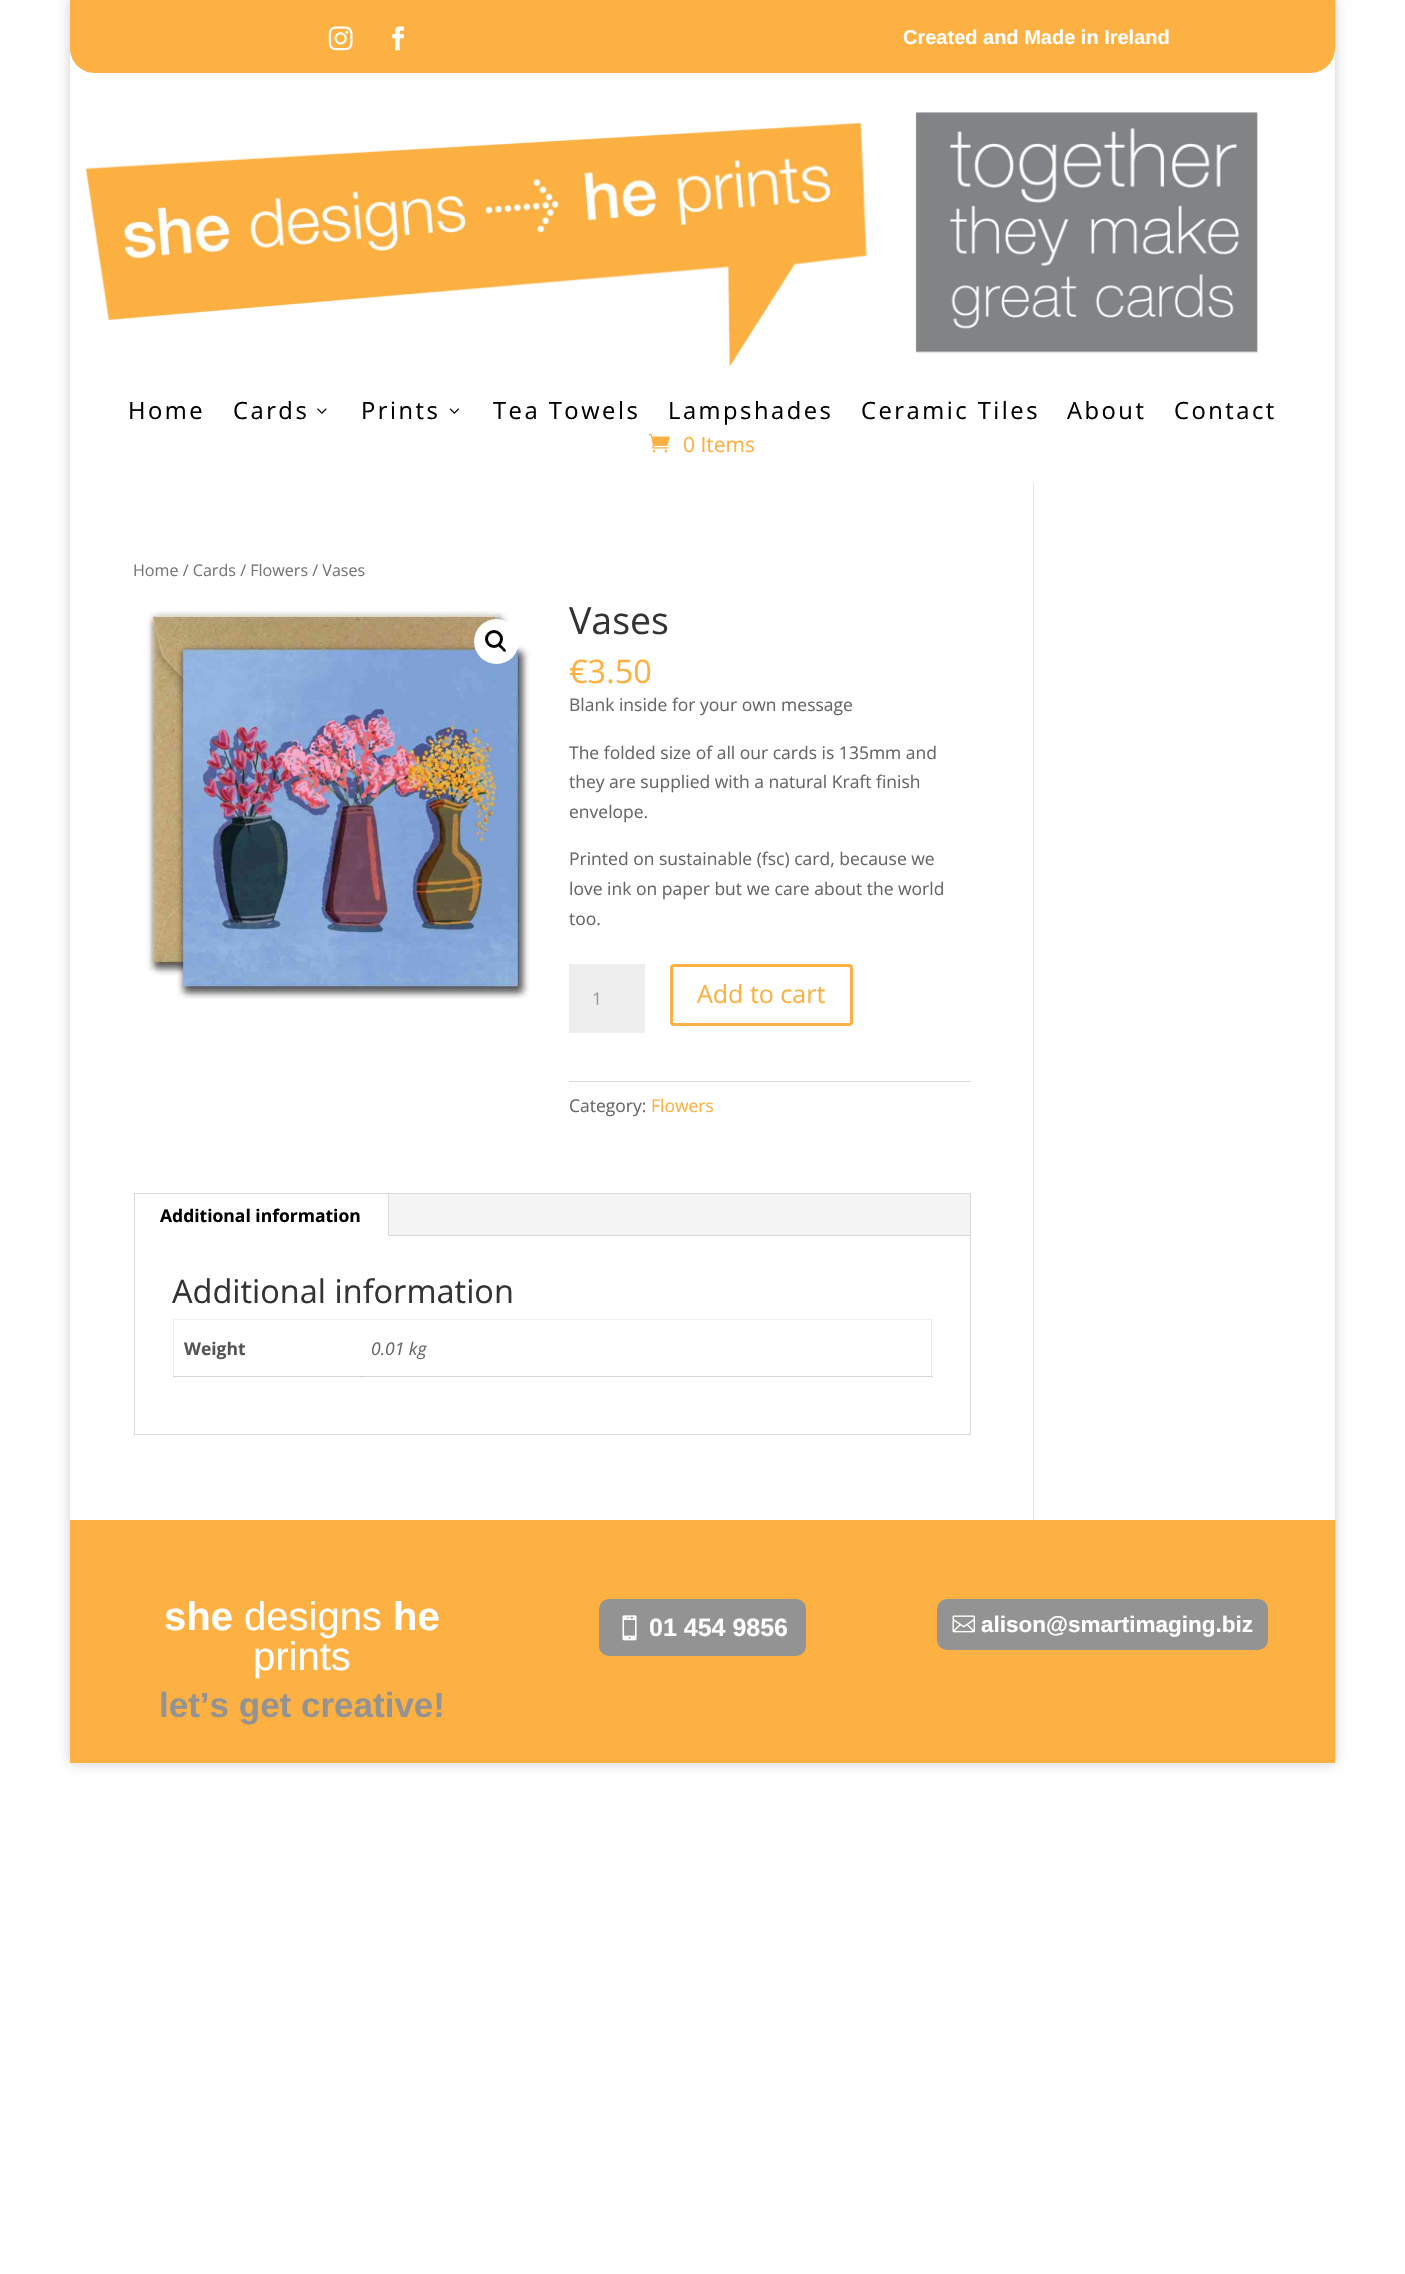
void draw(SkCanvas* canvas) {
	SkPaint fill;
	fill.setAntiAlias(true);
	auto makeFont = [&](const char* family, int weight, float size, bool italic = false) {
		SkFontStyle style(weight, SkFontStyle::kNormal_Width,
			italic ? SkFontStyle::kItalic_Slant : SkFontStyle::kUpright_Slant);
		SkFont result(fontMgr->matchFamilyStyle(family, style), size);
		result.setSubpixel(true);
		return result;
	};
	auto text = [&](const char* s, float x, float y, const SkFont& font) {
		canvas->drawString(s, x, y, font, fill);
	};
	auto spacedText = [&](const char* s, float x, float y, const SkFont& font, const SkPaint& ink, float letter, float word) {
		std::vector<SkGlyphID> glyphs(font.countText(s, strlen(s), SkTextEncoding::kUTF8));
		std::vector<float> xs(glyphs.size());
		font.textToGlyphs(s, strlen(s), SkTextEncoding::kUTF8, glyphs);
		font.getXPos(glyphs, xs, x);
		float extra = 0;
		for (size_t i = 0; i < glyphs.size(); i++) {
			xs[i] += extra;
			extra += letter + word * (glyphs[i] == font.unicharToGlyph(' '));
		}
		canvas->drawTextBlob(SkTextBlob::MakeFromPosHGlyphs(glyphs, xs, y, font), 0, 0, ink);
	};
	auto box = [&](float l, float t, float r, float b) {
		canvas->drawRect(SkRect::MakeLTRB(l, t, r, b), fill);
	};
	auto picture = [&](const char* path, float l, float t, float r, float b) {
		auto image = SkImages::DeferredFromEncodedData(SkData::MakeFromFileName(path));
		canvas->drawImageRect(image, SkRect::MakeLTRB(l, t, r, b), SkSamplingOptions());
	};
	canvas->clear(0xFFFFFFFF);
	canvas->save();
	canvas->clipPath(SkPathBuilder(SkPathFillType::kEvenOdd).moveTo(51, 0).lineTo(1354, 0).lineTo(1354, 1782).lineTo(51, 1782).close().moveTo(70, 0).lineTo(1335, 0).lineTo(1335, 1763).lineTo(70, 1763).close().detach(), true);
	fill.setColor(0x33000000);
	fill.setMaskFilter(SkMaskFilter::MakeBlur(kNormal_SkBlurStyle, 6));
	canvas->drawRect(SkRect::MakeLTRB(70, 0, 1335, 1763), fill);
	fill.setMaskFilter(nullptr);
	canvas->restore();
	fill.setColor(0xFFFCB142);
	canvas->drawPath(SkPathBuilder().moveTo(70, 0).lineTo(1335, 0).lineTo(1335, 48).cubicTo(1335, 62, 1324, 73, 1310, 73).lineTo(95, 73).cubicTo(81, 73, 70, 62, 70, 48).close().detach(), fill);
	picture("image0.png", 328, 26, 353, 51);
	picture("image1.png", 392, 26, 405, 51);
	picture("image2.png", 85, 112, 1258, 367);
	picture("image3.png", 317, 408, 327, 414);
	picture("image4.png", 449, 408, 459, 414);
	picture("image5.png", 648, 433, 670, 453);
	picture("image6.png", 145, 611, 531, 999);
	fill.setColor(0xFFFFFFFF);
	canvas->drawCircle(496.5f, 641.5f, 22.5f, fill);
	fill.setStyle(SkPaint::kStroke_Style);
	fill.setStrokeWidth(3);
	fill.setColor(0xFF000000);
	canvas->drawCircle(494, 639, 7.5f, fill);
	fill.setStyle(SkPaint::kFill_Style);
	canvas->drawPath(SkPathBuilder().moveTo(498.5f, 644.5f).cubicTo(500, 643, 502, 646, 503, 647).cubicTo(503.5f, 647.5f, 507, 650, 505.5f, 651.5f).cubicTo(504, 653, 502, 649.5f, 501, 648.5f).cubicTo(500, 648, 497, 645.5f, 498.5f, 644.5f).close().detach(), fill);
	fill.setColor(0xFFEEEEEE);
	box(569, 964, 645, 1033);
	fill.setStyle(SkPaint::kStroke_Style);
	fill.setColor(0xFFFCB142);
	canvas->drawRoundRect(SkRect::MakeLTRB(671.5f, 965.5f, 851.5f, 1024.5f), 2.5f, 2.5f, fill);
	fill.setStyle(SkPaint::kFill_Style);
	fill.setColor(0xFFDADADA);
	box(569, 1081, 971, 1082);
	fill.setStyle(SkPaint::kStroke_Style);
	fill.setStrokeWidth(1);
	fill.setColor(0xFFD9D9D9);
	canvas->drawRect(SkRect::MakeLTRB(134.5f, 1193.5f, 970.5f, 1434.5f), fill);
	fill.setStyle(SkPaint::kFill_Style);
	fill.setColor(0xFFF4F4F4);
	box(389, 1194, 970, 1235);
	fill.setColor(0xFFD9D9D9);
	box(388, 1194, 389, 1236);
	box(389, 1235, 970, 1236);
	fill.setColor(0xFFEEEEEE);
	box(173, 1319, 933, 1320);
	box(931, 1319, 932, 1378);
	fill.setColor(0xFFD6D6D6);
	box(173, 1376, 933, 1377);
	fill.setColor(0xFFEEEEEE);
	box(173, 1319, 174, 1378);
	fill.setColor(0xFFD6D6D6);
	box(173, 1376, 174, 1377);
	fill.setColor(0xFFC1C1C1);
	box(360, 1376, 361, 1377);
	fill.setColor(0xFFE2E2E2);
	box(1033, 484, 1034, 1520);
	fill.setColor(0xFFFCB142);
	box(70, 1520, 1335, 1763);
	fill.setColor(0xFF939393);
	canvas->drawRoundRect(SkRect::MakeLTRB(597.5f, 1597.5f, 807.5f, 1657.5f), 11.5f, 11.5f, fill);
	fill.setStyle(SkPaint::kStroke_Style);
	fill.setStrokeWidth(3);
	fill.setColor(0xFFFCB142);
	canvas->drawRoundRect(SkRect::MakeLTRB(597.5f, 1597.5f, 807.5f, 1657.5f), 11.5f, 11.5f, fill);
	picture("image7.png", 622, 1615, 637, 1641);
	fill.setStyle(SkPaint::kFill_Style);
	fill.setColor(0xFF939393);
	canvas->drawRoundRect(SkRect::MakeLTRB(935.5f, 1597.5f, 1269.5f, 1651.5f), 11.5f, 11.5f, fill);
	fill.setStyle(SkPaint::kStroke_Style);
	fill.setColor(0xFFFCB142);
	canvas->drawRoundRect(SkRect::MakeLTRB(935.5f, 1597.5f, 1269.5f, 1651.5f), 11.5f, 11.5f, fill);
	picture("image8.png", 952, 1615, 975, 1633);
	auto font1 = makeFont("Liberation Sans", 700, 20);
	fill.setStyle(SkPaint::kFill_Style);
	fill.setColor(0xFFFFFFFF);
	text("Created and Made in Ireland", 903, 44, font1);
	auto font2 = makeFont("Open Sans", 400, 23.75f);
	fill.setColor(0xFF000000);
	spacedText("Home", 128, 419, font2, fill, 2.5f, 0);
	spacedText("Cards", 233, 419, font2, fill, 2.5f, 0);
	spacedText("Prints", 361, 419, font2, fill, 2.5f, 0);
	spacedText("Tea Towels", 493, 419, font2, fill, 2.5f, 0);
	spacedText("Lampshades", 668, 419, font2, fill, 2.5f, 0);
	spacedText("Ceramic Tiles", 861, 419, font2, fill, 2.5f, 0);
	spacedText("About", 1067, 419, font2, fill, 2.5f, 0);
	spacedText("Contact", 1174, 419, font2, fill, 2.5f, 0);
	auto font3 = makeFont("Open Sans", 400, 21);
	fill.setColor(0xFFFCB142);
	text("0 Items", 683, 452, font3);
	auto font4 = makeFont("Open Sans", 400, 16.1f);
	fill.setColor(0xFF767676);
	text("Home / Cards / Flowers / Vases", 133, 576, font4);
	auto font5 = makeFont("Open Sans", 400, 37.5f);
	fill.setColor(0xFF333333);
	text("Vases", 569, 634, font5);
	auto font6 = makeFont("Open Sans", 400, 32.5f);
	fill.setColor(0xFFFCB142);
	text("€3.50", 569, 683, font6);
	auto font7 = makeFont("Open Sans", 400, 17.5f);
	fill.setColor(0xFF666666);
	text("Blank inside for your own message", 569, 711, font7);
	text("The folded size of all our cards is 135mm and", 569, 759, font7);
	text("they are supplied with a natural Kraft finish", 569, 788, font7);
	text("envelope.", 569, 818, font7);
	text("Printed on sustainable (fsc) card, because we", 569, 865, font7);
	text("love ink on paper but we care about the world", 569, 895, font7);
	text("too.", 569, 925, font7);
	fill.setColor(0xFF999999);
	text("1", 592, 1005, font7);
	auto font8 = makeFont("Open Sans", 400, 25);
	fill.setColor(0xFFFCB142);
	text("Add to cart", 697, 1003, font8);
	fill.setColor(0xFF666666);
	text("Category:", 569, 1112, font7);
	fill.setColor(0xFFFCB142);
	text("Flowers", 651, 1112, font7);
	auto font9 = makeFont("Open Sans", 700, 17.5f);
	fill.setColor(0xFF000000);
	text("Additional information", 160, 1222, font9);
	fill.setColor(0xFF333333);
	text("Additional information", 172, 1303, font6);
	fill.setColor(0xFF555555);
	text("Weight", 184, 1355, font9);
	auto font10 = makeFont("Open Sans", 400, 17.5f, true);
	fill.setColor(0xFF666666);
	text("0.01 kg", 371, 1355, font10);
	auto font11 = makeFont("Liberation Sans", 700, 40);
	fill.setColor(0xFFFFFFFF);
	text("she", 164, 1630, font11);
	auto font12 = makeFont("Liberation Sans", 400, 40);
	text("designs", 244, 1630, font12);
	text("he", 393, 1630, font11);
	text("prints", 253, 1670, font12);
	auto font13 = makeFont("Liberation Sans", 700, 35);
	fill.setColor(0xFF939393);
	text("let’s get creative!", 159, 1717, font13);
	auto font14 = makeFont("Liberation Sans", 700, 25);
	fill.setColor(0xFFFFFFFF);
	text("01 454 9856", 649, 1636, font14);
	auto font15 = makeFont("Liberation Sans", 700, 22.5f);
	text("alison@smartimaging.biz", 981, 1632, font15);
}
